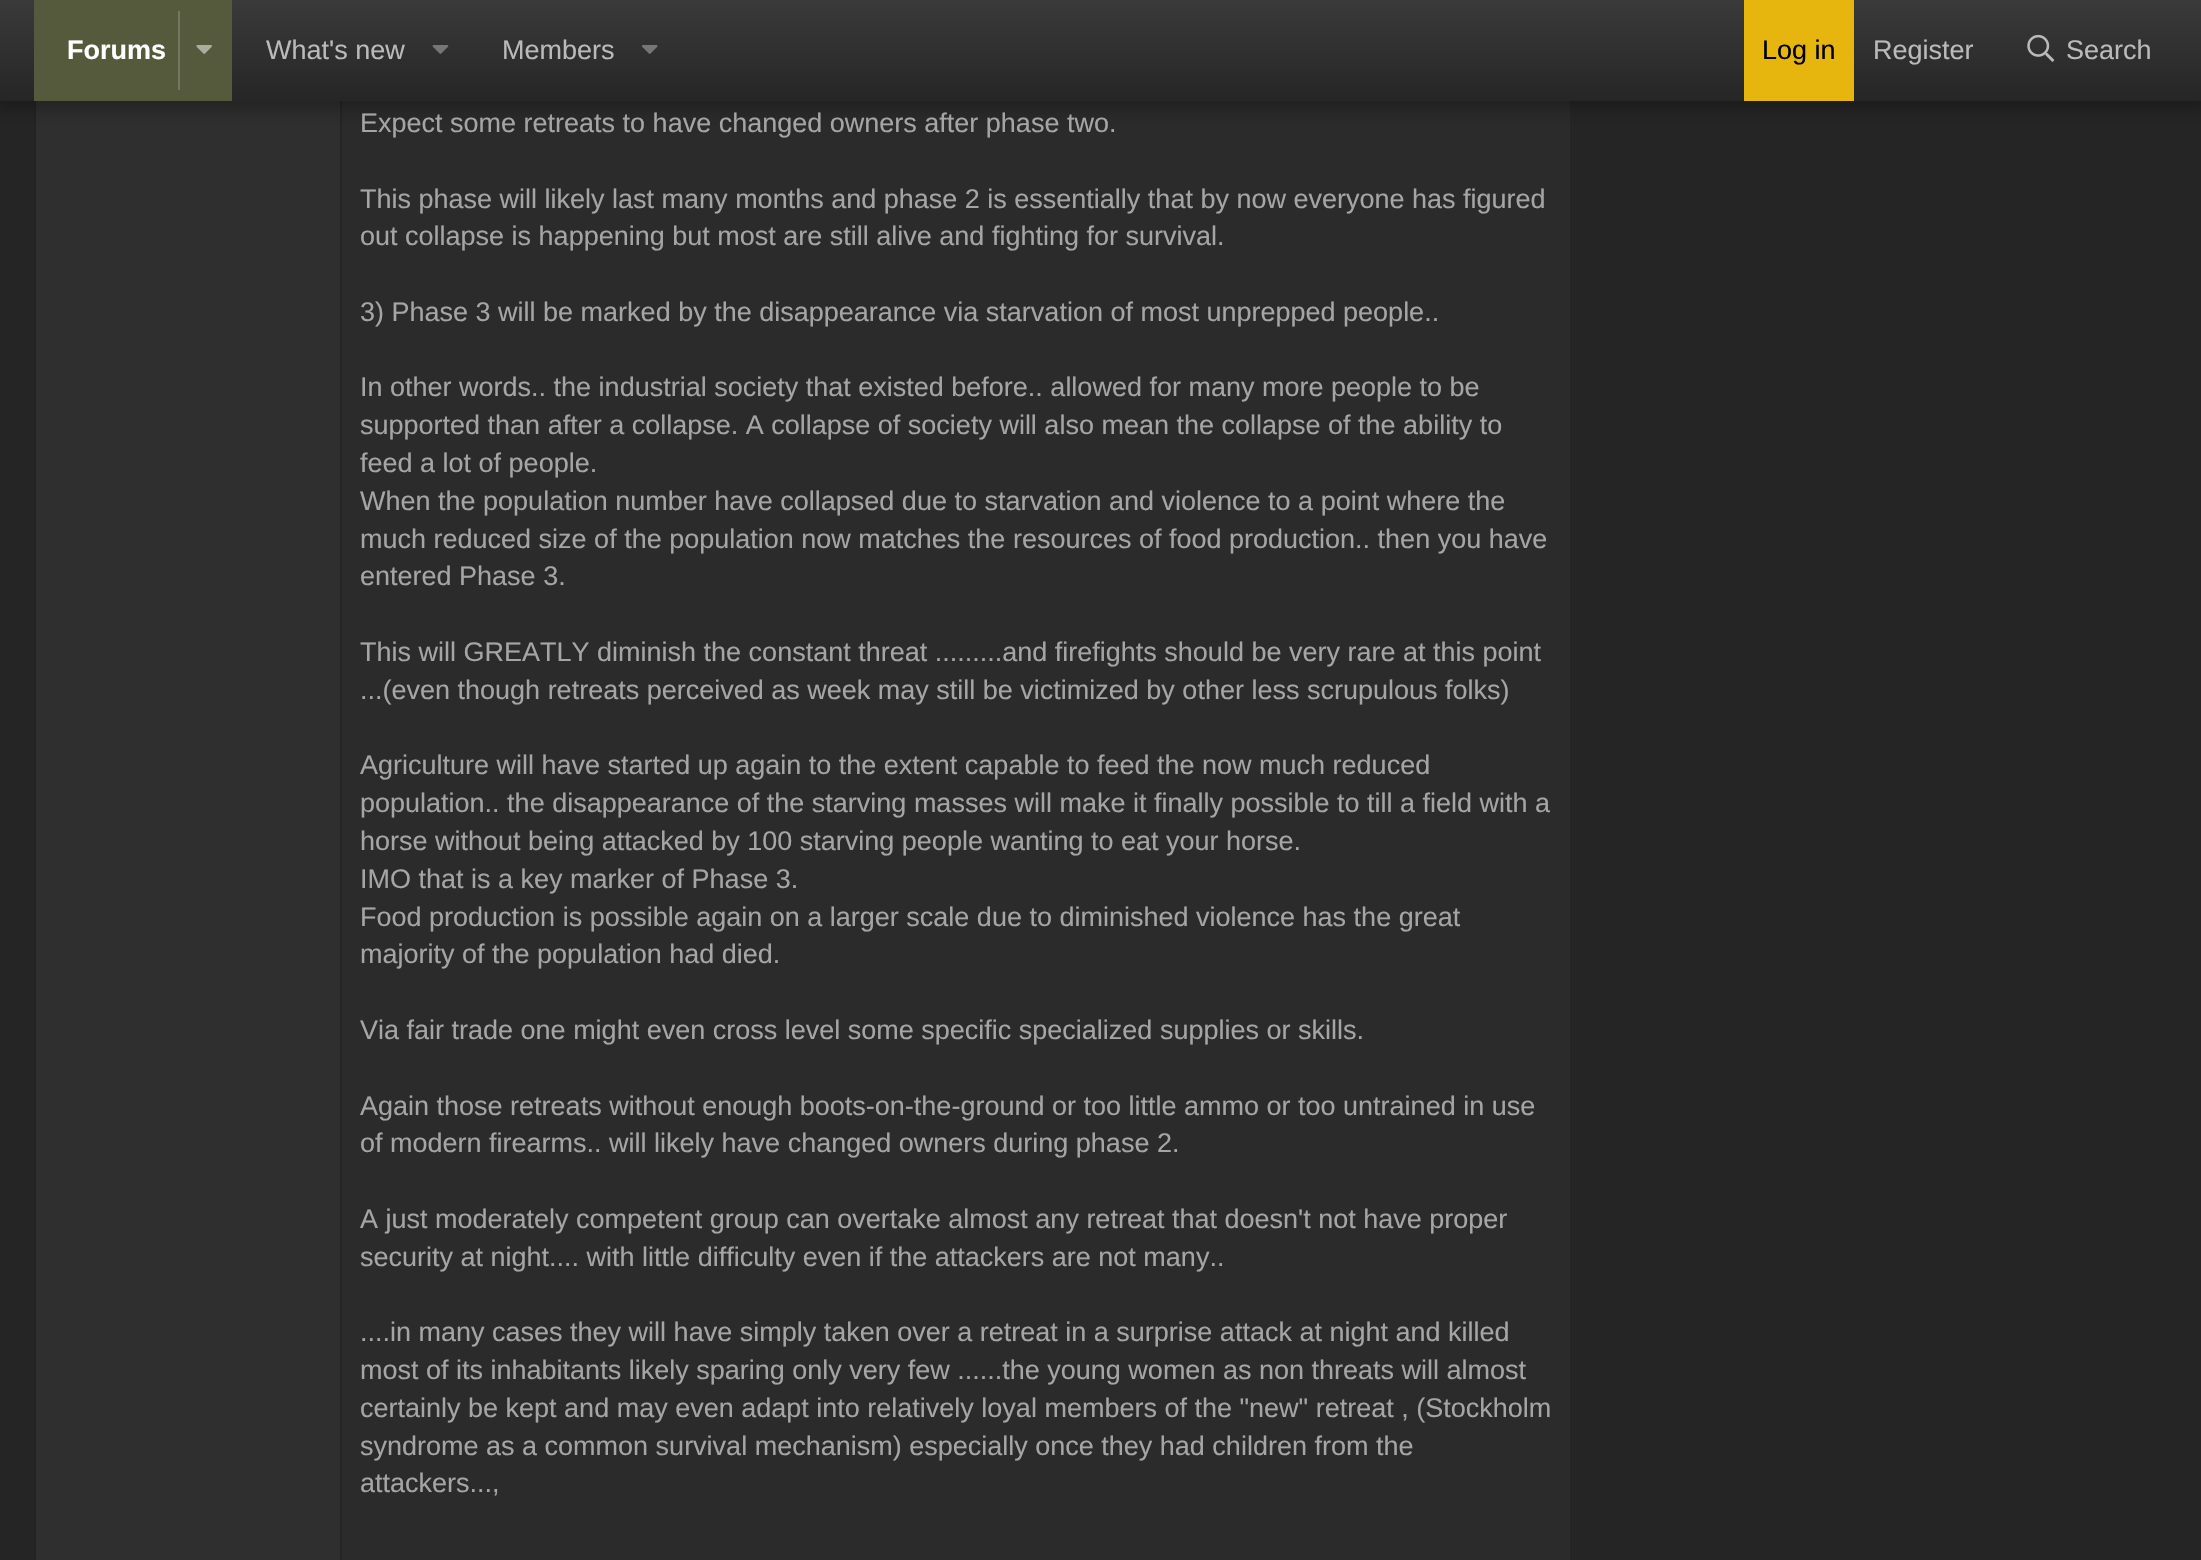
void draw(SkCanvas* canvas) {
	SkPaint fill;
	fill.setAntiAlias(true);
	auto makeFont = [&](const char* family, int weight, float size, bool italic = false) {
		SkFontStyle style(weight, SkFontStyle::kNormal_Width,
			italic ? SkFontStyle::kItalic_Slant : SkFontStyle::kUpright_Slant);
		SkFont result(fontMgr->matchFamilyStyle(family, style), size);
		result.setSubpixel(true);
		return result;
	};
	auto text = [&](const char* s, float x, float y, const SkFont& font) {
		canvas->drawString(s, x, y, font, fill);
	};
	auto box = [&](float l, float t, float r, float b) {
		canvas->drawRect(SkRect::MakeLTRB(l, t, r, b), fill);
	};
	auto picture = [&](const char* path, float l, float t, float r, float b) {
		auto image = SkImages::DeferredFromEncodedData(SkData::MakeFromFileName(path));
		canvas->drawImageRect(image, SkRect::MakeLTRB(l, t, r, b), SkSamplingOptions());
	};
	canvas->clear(0xFF252525);
	fill.setColor(0xFF2B2B2B);
	box(342, 101, 1573, 1560);
	fill.setStyle(SkPaint::kStroke_Style);
	fill.setStrokeWidth(2.2f);
	fill.setColor(0xFF232323);
	canvas->drawPath(SkPathBuilder().moveTo(37, 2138.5f).cubicTo(35.5f, 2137, 35, 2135, 35, 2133).lineTo(35, -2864).cubicTo(35, -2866.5f, 35.5f, -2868.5f, 37, -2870).cubicTo(38.5f, -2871.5f, 40.5f, -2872, 43, -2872).lineTo(1564, -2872).cubicTo(1566, -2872, 1568, -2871.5f, 1569.5f, -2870).cubicTo(1571, -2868.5f, 1571.5f, -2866.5f, 1571.5f, -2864).lineTo(1571.5f, 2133).cubicTo(1571.5f, 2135, 1571, 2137, 1569.5f, 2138.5f).detach(), fill);
	fill.setStyle(SkPaint::kFill_Style);
	fill.setColor(0xFF2F2F2F);
	box(36, 101, 340, 1560);
	fill.setColor(0x4D000000);
	fill.setMaskFilter(SkMaskFilter::MakeBlur(kNormal_SkBlurStyle, 9));
	canvas->drawRect(SkRect::MakeLTRB(-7, -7, 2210, 108), fill);
	fill.setMaskFilter(nullptr);
	{
		const SkColor colors[] = {0xFF3A3A3A, 0xFF262626};
		const float stops[] = {0, 1};
		const SkPoint ends[] = {{1101, 0}, {1101, 101}};
		fill.setShader(SkGradientShader::MakeLinear(ends, colors, stops, 2, SkTileMode::kClamp));
		fill.setAlpha(255);
	}
	box(0, 0, 2201, 101);
	fill.setShader(nullptr);
	fill.setColor(0xFF555A3C);
	box(34, 0, 232, 101);
	fill.setColor(0xFF73775E);
	box(178, 11, 180, 90);
	picture("image0.png", 196, 45, 212, 54);
	picture("image1.png", 432, 45, 449, 54);
	picture("image2.png", 642, 45, 658, 54);
	fill.setColor(0xFFE6B60E);
	box(1744, 0, 1854, 101);
	picture("image3.png", 2027, 34, 2055, 62);
	auto font1 = makeFont("Liberation Sans", 700, 27);
	fill.setColor(0xFFFFFFFF);
	text("Forums", 67, 59, font1);
	auto font2 = makeFont("Liberation Sans", 400, 27);
	fill.setColor(0xFFBABABA);
	text("What's new", 266, 59, font2);
	text("Members", 502, 59, font2);
	fill.setColor(0xFF000000);
	text("Log in", 1762, 59, font2);
	fill.setColor(0xFFBABABA);
	text("Register", 1873, 59, font2);
	text("Search", 2066, 59, font2);
	fill.setColor(0xFFA5A5A5);
	text("Expect some retreats to have changed owners after phase two.", 360, 132, font2);
	text("This phase will likely last many months and phase 2 is essentially that by now everyone has figured", 360, 208, font2);
	text("out collapse is happening but most are still alive and fighting for survival.", 360, 245, font2);
	text("3) Phase 3 will be marked by the disappearance via starvation of most unprepped people..", 360, 321, font2);
	text("In other words.. the industrial society that existed before.. allowed for many more people to be", 360, 396, font2);
	text("supported than after a collapse. A collapse of society will also mean the collapse of the ability to", 360, 434, font2);
	text("feed a lot of people.", 360, 472, font2);
	text("When the population number have collapsed due to starvation and violence to a point where the", 360, 510, font2);
	text("much reduced size of the population now matches the resources of food production.. then you have", 360, 548, font2);
	text("entered Phase 3.", 360, 585, font2);
	text("This will GREATLY diminish the constant threat .........and firefights should be very rare at this point", 360, 661, font2);
	text("...(even though retreats perceived as week may still be victimized by other less scrupulous folks)", 360, 699, font2);
	text("Agriculture will have started up again to the extent capable to feed the now much reduced", 360, 774, font2);
	text("population.. the disappearance of the starving masses will make it finally possible to till a field with a", 360, 812, font2);
	text("horse without being attacked by 100 starving people wanting to eat your horse.", 360, 850, font2);
	text("IMO that is a key marker of Phase 3.", 360, 888, font2);
	text("Food production is possible again on a larger scale due to diminished violence has the great", 360, 926, font2);
	text("majority of the population had died.", 360, 963, font2);
	text("Via fair trade one might even cross level some specific specialized supplies or skills.", 360, 1039, font2);
	text("Again those retreats without enough boots-on-the-ground or too little ammo or too untrained in use", 360, 1115, font2);
	text("of modern firearms.. will likely have changed owners during phase 2.", 360, 1152, font2);
	text("A just moderately competent group can overtake almost any retreat that doesn't not have proper", 360, 1228, font2);
	text("security at night.... with little difficulty even if the attackers are not many..", 360, 1266, font2);
	text("....in many cases they will have simply taken over a retreat in a surprise attack at night and killed", 360, 1341, font2);
	text("most of its inhabitants likely sparing only very few ......the young women as non threats will almost", 360, 1379, font2);
	text("certainly be kept and may even adapt into relatively loyal members of the \"new\" retreat , (Stockholm", 360, 1417, font2);
	text("syndrome as a common survival mechanism) especially once they had children from the", 360, 1455, font2);
	text("attackers...,", 360, 1492, font2);
}
